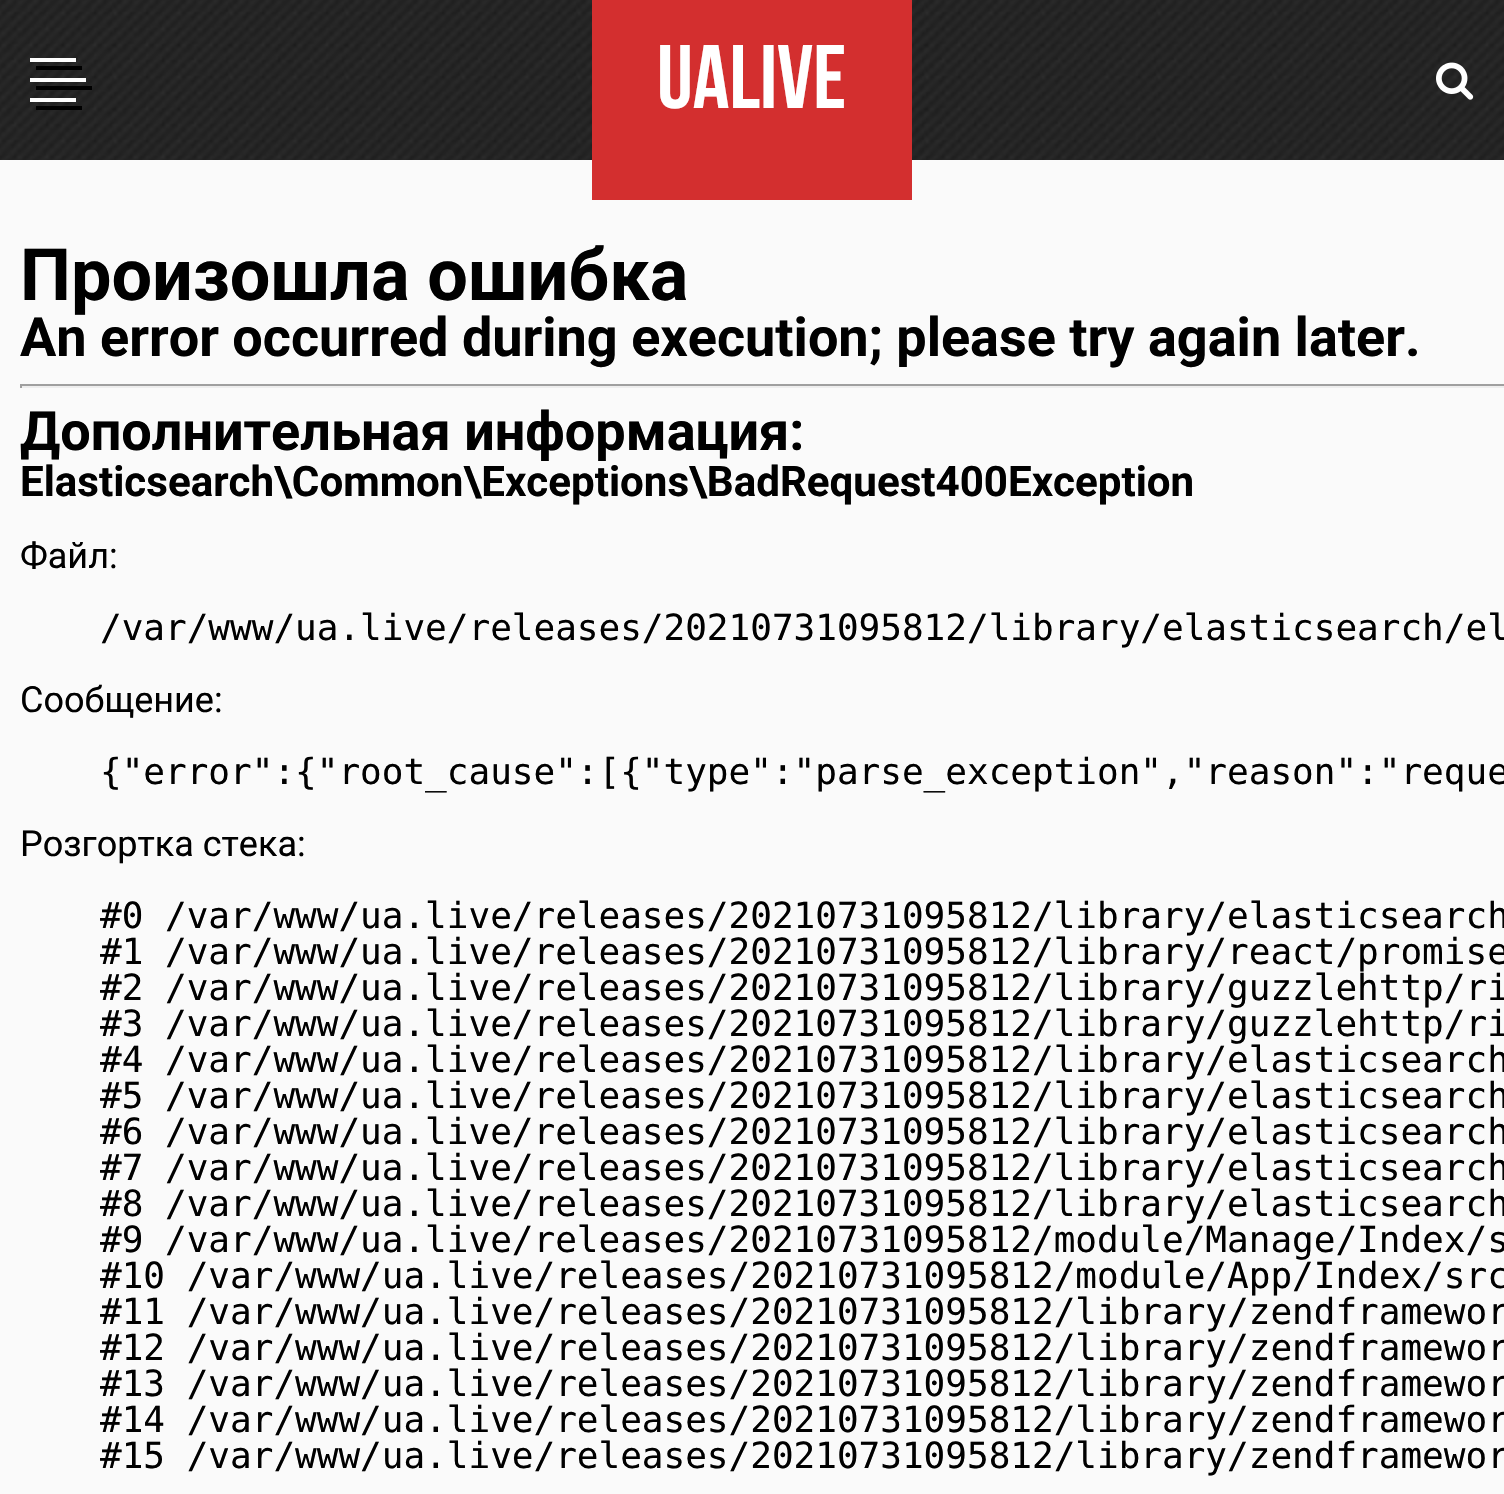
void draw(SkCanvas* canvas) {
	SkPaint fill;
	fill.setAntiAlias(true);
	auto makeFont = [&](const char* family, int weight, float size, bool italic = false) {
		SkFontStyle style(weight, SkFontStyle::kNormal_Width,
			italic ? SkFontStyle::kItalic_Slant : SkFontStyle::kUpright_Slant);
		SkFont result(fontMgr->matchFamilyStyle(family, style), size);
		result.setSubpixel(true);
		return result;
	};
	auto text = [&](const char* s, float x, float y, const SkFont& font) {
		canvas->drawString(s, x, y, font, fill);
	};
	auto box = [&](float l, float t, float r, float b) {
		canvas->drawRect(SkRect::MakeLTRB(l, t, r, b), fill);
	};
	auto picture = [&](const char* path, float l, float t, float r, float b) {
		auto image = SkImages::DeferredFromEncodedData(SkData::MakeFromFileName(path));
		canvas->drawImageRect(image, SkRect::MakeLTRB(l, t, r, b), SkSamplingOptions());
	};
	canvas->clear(0xFFFAFAFA);
	picture("image0.png", 0, 0, 1504, 160);
	fill.setColor(0xFF000000);
	box(36, 66, 82, 70);
	fill.setColor(0xFFFFFFFF);
	box(30, 58, 76, 62);
	fill.setColor(0xFF000000);
	box(36, 86, 92, 90);
	fill.setColor(0xFFFFFFFF);
	box(30, 78, 86, 82);
	fill.setColor(0xFF000000);
	box(36, 106, 82, 110);
	fill.setColor(0xFFFFFFFF);
	box(30, 98, 76, 102);
	fill.setColor(0xFFD32F2F);
	box(592, 0, 912, 200);
	picture("image1.png", 1436, 62, 1474, 100);
	fill.setColor(0xFF9F9F9F);
	box(20, 384, 1504, 386);
	fill.setColor(0xFFEEEEEE);
	box(20, 386, 1504, 388);
	fill.setColor(0xFF9F9F9F);
	box(20, 384, 22, 388);
	auto font1 = makeFont("Bebas Neue", 700, 90);
	fill.setColor(0xFFFFFFFF);
	text("UALIVE", 657, 108, font1);
	auto font2 = makeFont("Roboto", 700, 72);
	fill.setColor(0xFF000000);
	text("Произошла ошибка", 20, 300, font2);
	auto font3 = makeFont("Roboto", 700, 54);
	text("An error occurred during execution; please try again later.", 20, 356, font3);
	text("Дополнительная информация:", 20, 450, font3);
	auto font4 = makeFont("Roboto", 700, 42.1f);
	text("Elasticsearch\\Common\\Exceptions\\BadRequest400Exception", 20, 496, font4);
	auto font5 = makeFont("Roboto", 400, 36);
	text("Файл:", 20, 568, font5);
	auto font6 = makeFont("DejaVu Sans Mono", 400, 36);
	text("/var/www/ua.live/releases/20210731095812/library/elasticsearch/el", 100, 640, font6);
	text("Сообщение:", 20, 712, font5);
	text("{\"error\":{\"root_cause\":[{\"type\":\"parse_exception\",\"reason\":\"reque", 100, 784, font6);
	text("Розгортка стека:", 20, 856, font5);
	text("#0 /var/www/ua.live/releases/20210731095812/library/elasticsearch", 100, 928, font6);
	text("#1 /var/www/ua.live/releases/20210731095812/library/react/promise", 100, 964, font6);
	text("#2 /var/www/ua.live/releases/20210731095812/library/guzzlehttp/ri", 100, 1000, font6);
	text("#3 /var/www/ua.live/releases/20210731095812/library/guzzlehttp/ri", 100, 1036, font6);
	text("#4 /var/www/ua.live/releases/20210731095812/library/elasticsearch", 100, 1072, font6);
	text("#5 /var/www/ua.live/releases/20210731095812/library/elasticsearch", 100, 1108, font6);
	text("#6 /var/www/ua.live/releases/20210731095812/library/elasticsearch", 100, 1144, font6);
	text("#7 /var/www/ua.live/releases/20210731095812/library/elasticsearch", 100, 1180, font6);
	text("#8 /var/www/ua.live/releases/20210731095812/library/elasticsearch", 100, 1216, font6);
	text("#9 /var/www/ua.live/releases/20210731095812/module/Manage/Index/s", 100, 1252, font6);
	text("#10 /var/www/ua.live/releases/20210731095812/module/App/Index/src", 100, 1288, font6);
	text("#11 /var/www/ua.live/releases/20210731095812/library/zendframewor", 100, 1324, font6);
	text("#12 /var/www/ua.live/releases/20210731095812/library/zendframewor", 100, 1360, font6);
	text("#13 /var/www/ua.live/releases/20210731095812/library/zendframewor", 100, 1396, font6);
	text("#14 /var/www/ua.live/releases/20210731095812/library/zendframewor", 100, 1432, font6);
	text("#15 /var/www/ua.live/releases/20210731095812/library/zendframewor", 100, 1468, font6);
}
